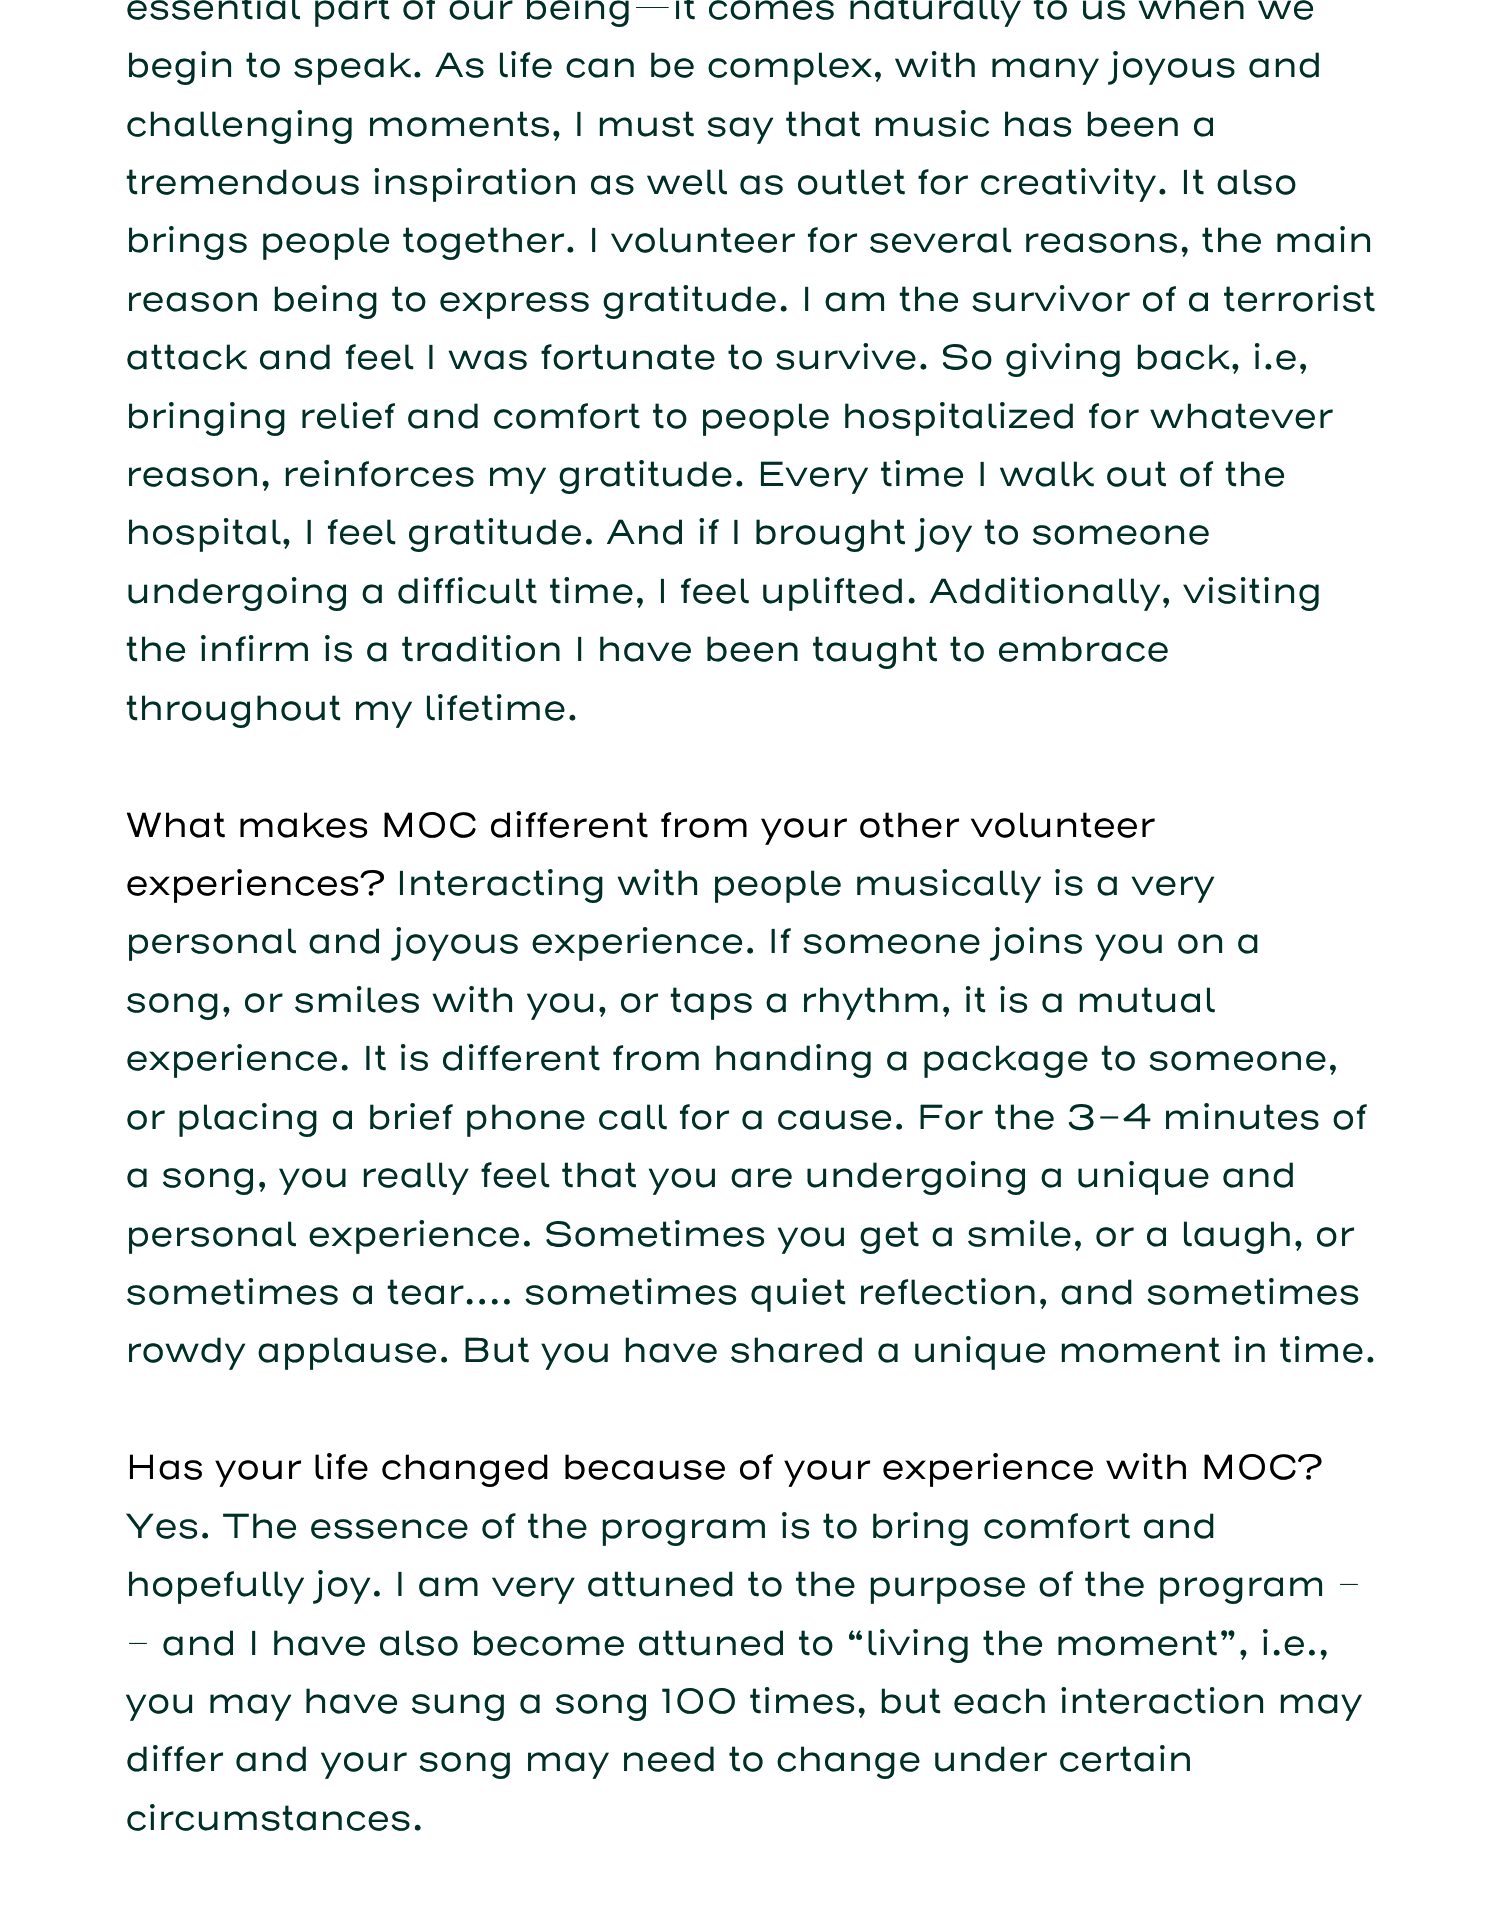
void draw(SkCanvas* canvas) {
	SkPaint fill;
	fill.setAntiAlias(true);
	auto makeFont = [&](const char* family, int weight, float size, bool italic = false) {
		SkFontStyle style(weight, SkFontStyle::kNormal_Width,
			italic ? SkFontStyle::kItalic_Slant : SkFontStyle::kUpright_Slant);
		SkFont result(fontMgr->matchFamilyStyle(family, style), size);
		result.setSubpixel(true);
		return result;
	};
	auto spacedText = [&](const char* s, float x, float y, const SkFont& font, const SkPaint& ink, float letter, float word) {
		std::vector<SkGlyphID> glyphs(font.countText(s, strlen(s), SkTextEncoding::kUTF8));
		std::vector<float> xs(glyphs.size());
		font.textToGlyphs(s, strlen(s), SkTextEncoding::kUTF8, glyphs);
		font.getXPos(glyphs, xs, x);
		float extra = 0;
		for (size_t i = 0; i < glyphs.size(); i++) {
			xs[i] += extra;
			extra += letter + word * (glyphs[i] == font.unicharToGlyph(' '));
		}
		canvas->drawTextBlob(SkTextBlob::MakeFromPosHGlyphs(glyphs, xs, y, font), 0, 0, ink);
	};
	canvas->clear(0xFFFFFFFF);
	auto font1 = makeFont("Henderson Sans", 400, 35.2f);
	fill.setColor(0xFF002F28);
	spacedText("essential part of our being—it comes naturally to us when we", 125, 19, font1, fill, -0.7f, 0);
	spacedText("begin to speak. As life can be complex, with many joyous and", 125, 77, font1, fill, -0.7f, 0);
	spacedText("challenging moments, I must say that music has been a", 125, 136, font1, fill, -0.7f, 0);
	spacedText("tremendous inspiration as well as outlet for creativity. It also", 125, 194, font1, fill, -0.7f, 0);
	spacedText("brings people together. I volunteer for several reasons, the main", 125, 252, font1, fill, -0.7f, 0);
	spacedText("reason being to express gratitude. I am the survivor of a terrorist", 125, 311, font1, fill, -0.7f, 0);
	spacedText("attack and feel I was fortunate to survive. So giving back, i.e,", 125, 369, font1, fill, -0.7f, 0);
	spacedText("bringing relief and comfort to people hospitalized for whatever", 125, 428, font1, fill, -0.7f, 0);
	spacedText("reason, reinforces my gratitude. Every time I walk out of the", 125, 486, font1, fill, -0.7f, 0);
	spacedText("hospital, I feel gratitude. And if I brought joy to someone", 125, 544, font1, fill, -0.7f, 0);
	spacedText("undergoing a difficult time, I feel uplifted. Additionally, visiting", 125, 603, font1, fill, -0.7f, 0);
	spacedText("the infirm is a tradition I have been taught to embrace", 125, 661, font1, fill, -0.7f, 0);
	spacedText("throughout my lifetime.", 125, 720, font1, fill, -0.7f, 0);
	fill.setColor(0xFF000000);
	spacedText("What makes MOC different from your other volunteer", 125, 837, font1, fill, -0.7f, 0);
	spacedText("experiences?", 125, 895, font1, fill, -0.7f, 0);
	fill.setColor(0xFF002F28);
	spacedText("Interacting with people musically is a very", 395, 895, font1, fill, -0.7f, 0);
	spacedText("personal and joyous experience. If someone joins you on a", 125, 953, font1, fill, -0.7f, 0);
	spacedText("song, or smiles with you, or taps a rhythm, it is a mutual", 125, 1012, font1, fill, -0.7f, 0);
	spacedText("experience. It is different from handing a package to someone,", 125, 1070, font1, fill, -0.7f, 0);
	spacedText("or placing a brief phone call for a cause. For the 3-4 minutes of", 125, 1129, font1, fill, -0.7f, 0);
	spacedText("a song, you really feel that you are undergoing a unique and", 125, 1187, font1, fill, -0.7f, 0);
	spacedText("personal experience. Sometimes you get a smile, or a laugh, or", 125, 1246, font1, fill, -0.7f, 0);
	spacedText("sometimes a tear…. sometimes quiet reflection, and sometimes", 125, 1304, font1, fill, -0.7f, 0);
	spacedText("rowdy applause. But you have shared a unique moment in time.", 125, 1362, font1, fill, -0.7f, 0);
	fill.setColor(0xFF000000);
	spacedText("Has your life changed because of your experience with MOC?", 125, 1479, font1, fill, -0.7f, 0);
	fill.setColor(0xFF002F28);
	spacedText("Yes. The essence of the program is to bring comfort and", 125, 1538, font1, fill, -0.7f, 0);
	spacedText("hopefully joy. I am very attuned to the purpose of the program –", 125, 1596, font1, fill, -0.7f, 0);
	spacedText("– and I have also become attuned to “living the moment”, i.e.,", 125, 1655, font1, fill, -0.7f, 0);
	spacedText("you may have sung a song 100 times, but each interaction may", 125, 1713, font1, fill, -0.7f, 0);
	spacedText("differ and your song may need to change under certain", 125, 1771, font1, fill, -0.7f, 0);
	spacedText("circumstances.", 125, 1830, font1, fill, -0.7f, 0);
}
